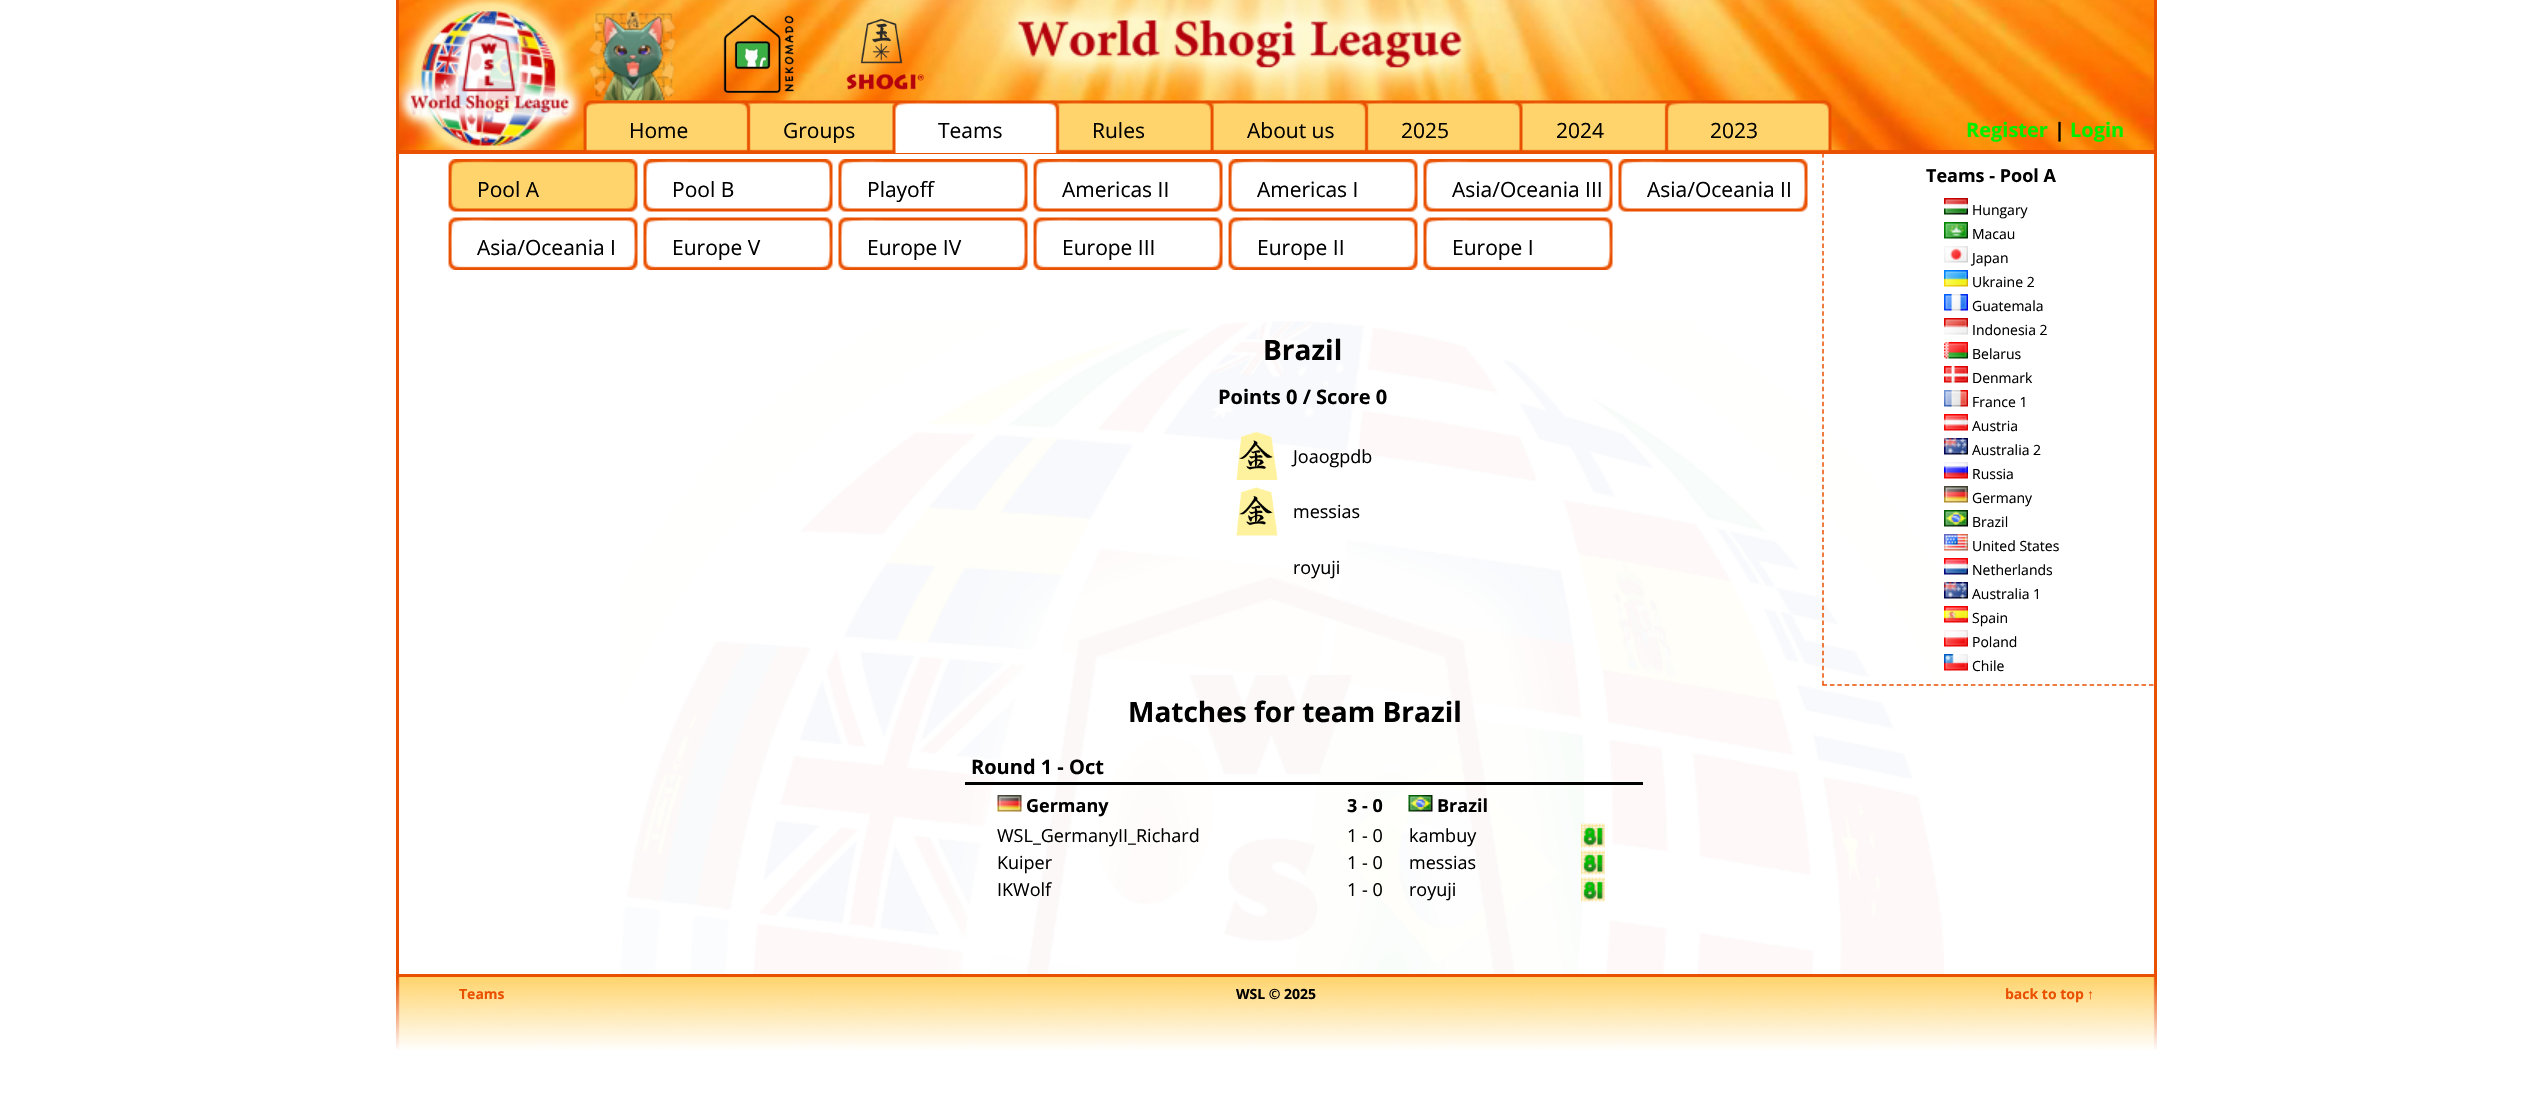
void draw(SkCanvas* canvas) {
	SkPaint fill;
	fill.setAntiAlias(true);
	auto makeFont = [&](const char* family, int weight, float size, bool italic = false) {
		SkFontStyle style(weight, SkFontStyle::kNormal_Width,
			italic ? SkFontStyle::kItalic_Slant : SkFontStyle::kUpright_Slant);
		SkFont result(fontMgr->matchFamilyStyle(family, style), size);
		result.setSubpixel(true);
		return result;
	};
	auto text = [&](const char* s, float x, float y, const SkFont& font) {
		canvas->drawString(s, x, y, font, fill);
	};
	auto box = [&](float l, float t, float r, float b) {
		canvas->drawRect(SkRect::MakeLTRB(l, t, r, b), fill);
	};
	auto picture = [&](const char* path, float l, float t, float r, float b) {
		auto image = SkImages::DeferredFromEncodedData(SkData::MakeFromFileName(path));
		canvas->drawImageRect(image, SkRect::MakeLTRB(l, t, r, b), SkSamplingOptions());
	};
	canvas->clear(0xFFFFFFFF);
	picture("image0.png", 399, 0, 2154, 150);
	fill.setColor(0xFFE95000);
	box(396, 152, 2157, 154);
	box(2154, 0, 2157, 975);
	box(396, 150, 2157, 152);
	box(396, 0, 399, 152);
	picture("image1.png", 588, 9, 679, 101);
	picture("image2.png", 723, 14, 795, 93);
	picture("image3.png", 846, 18, 924, 90);
	picture("image5.png", 741, 100, 905, 151);
	picture("image4.png", 583, 100, 751, 151);
	picture("image10.png", 1513, 100, 1675, 151);
	picture("image9.png", 1359, 100, 1523, 151);
	picture("image8.png", 1204, 100, 1369, 151);
	picture("image7.png", 1046, 100, 1214, 151);
	picture("image6.png", 891, 100, 1060, 153);
	picture("image11.png", 1664, 100, 1832, 151);
	picture("image12.png", 621, 321, 1944, 974);
	box(396, 974, 2157, 976);
	box(396, 152, 399, 975);
	picture("image13.png", 448, 159, 638, 212);
	picture("image14.png", 643, 159, 833, 212);
	picture("image14.png", 838, 159, 1028, 212);
	picture("image15.png", 1033, 159, 1223, 212);
	picture("image16.png", 1228, 159, 1418, 212);
	picture("image14.png", 1423, 159, 1613, 212);
	picture("image14.png", 1618, 159, 1808, 212);
	picture("image17.png", 448, 217, 638, 270);
	picture("image18.png", 643, 217, 833, 270);
	picture("image18.png", 838, 217, 1028, 270);
	picture("image19.png", 1033, 217, 1223, 270);
	picture("image20.png", 1228, 217, 1418, 270);
	picture("image18.png", 1423, 217, 1613, 270);
	fill.setStyle(SkPaint::kStroke_Style);
	fill.setStrokeWidth(1.5f);
	fill.setPathEffect(SkDashPathEffect::Make({{4.5f, 2.92f}}, 0));
	canvas->drawPath(SkPathBuilder().moveTo(1822.5f, 685).lineTo(2154, 685).detach(), fill);
	fill.setPathEffect(nullptr);
	fill.setPathEffect(SkDashPathEffect::Make({{4.5f, 3.04f}}, 0));
	canvas->drawPath(SkPathBuilder().moveTo(1823, 153).lineTo(1823, 685.5f).detach(), fill);
	fill.setPathEffect(nullptr);
	picture("image21.png", 1944, 198, 1968, 215);
	picture("image22.png", 1944, 222, 1968, 239);
	picture("image23.png", 1944, 246, 1968, 263);
	picture("image24.png", 1944, 270, 1968, 287);
	picture("image25.png", 1944, 294, 1968, 311);
	picture("image26.png", 1944, 318, 1968, 335);
	picture("image27.png", 1944, 342, 1968, 359);
	picture("image28.png", 1944, 366, 1968, 383);
	picture("image29.png", 1944, 390, 1968, 407);
	picture("image30.png", 1944, 414, 1968, 431);
	picture("image31.png", 1944, 438, 1968, 455);
	picture("image32.png", 1944, 462, 1968, 479);
	picture("image33.png", 1944, 486, 1968, 503);
	picture("image34.png", 1944, 510, 1968, 527);
	picture("image35.png", 1944, 534, 1968, 551);
	picture("image36.png", 1944, 558, 1968, 575);
	picture("image31.png", 1944, 582, 1968, 599);
	picture("image37.png", 1944, 606, 1968, 623);
	picture("image38.png", 1944, 630, 1968, 647);
	picture("image39.png", 1944, 654, 1968, 671);
	picture("image40.png", 1236, 432, 1278, 480);
	picture("image41.png", 1236, 487, 1278, 536);
	fill.setStyle(SkPaint::kFill_Style);
	fill.setColor(0xFF000000);
	box(965, 782, 1643, 785);
	picture("image42.png", 997, 795, 1022, 812);
	picture("image43.png", 1408, 795, 1433, 812);
	picture("image44.png", 1581, 823, 1605, 848);
	picture("image45.png", 1581, 850, 1605, 875);
	picture("image46.png", 1581, 877, 1605, 902);
	picture("image47.png", 396, 977, 2157, 1050);
	fill.setColor(0xFFE95000);
	box(396, 976, 2157, 977);
	auto font1 = makeFont("Open Sans", 400, 21);
	fill.setColor(0xFF000000);
	text("Home", 629, 138, font1);
	text("Groups", 783, 138, font1);
	text("Teams", 938, 138, font1);
	text("Rules", 1092, 138, font1);
	text("About us", 1247, 138, font1);
	text("2025", 1401, 138, font1);
	text("2024", 1556, 138, font1);
	text("2023", 1710, 138, font1);
	auto font2 = makeFont("Open Sans", 700, 20);
	fill.setColor(0xFF00EE00);
	text("Register", 1966, 137, font2);
	fill.setColor(0xFF000000);
	text("|", 2054, 137, font2);
	fill.setColor(0xFF00EE00);
	text("Login", 2070, 137, font2);
	fill.setColor(0xFF000000);
	text("Pool A", 477, 197, font1);
	text("Pool B", 672, 197, font1);
	text("Playoff", 867, 197, font1);
	text("Americas II", 1062, 197, font1);
	text("Americas I", 1257, 197, font1);
	text("Asia/Oceania III", 1452, 197, font1);
	text("Asia/Oceania II", 1647, 197, font1);
	text("Asia/Oceania I", 477, 255, font1);
	text("Europe V", 672, 255, font1);
	text("Europe IV", 867, 255, font1);
	text("Europe III", 1062, 255, font1);
	text("Europe II", 1257, 255, font1);
	text("Europe I", 1452, 255, font1);
	auto font3 = makeFont("Open Sans", 700, 18);
	text("Teams - Pool A", 1926, 182, font3);
	auto font4 = makeFont("Open Sans", 400, 14);
	text("Hungary", 1972, 215, font4);
	text("Macau", 1972, 239, font4);
	text("Japan", 1972, 263, font4);
	text("Ukraine 2", 1972, 287, font4);
	text("Guatemala", 1972, 311, font4);
	text("Indonesia 2", 1972, 335, font4);
	text("Belarus", 1972, 359, font4);
	text("Denmark", 1972, 383, font4);
	text("France 1", 1972, 407, font4);
	text("Austria", 1972, 431, font4);
	text("Australia 2", 1972, 455, font4);
	text("Russia", 1972, 479, font4);
	text("Germany", 1972, 503, font4);
	text("Brazil", 1972, 527, font4);
	text("United States", 1972, 551, font4);
	text("Netherlands", 1972, 575, font4);
	text("Australia 1", 1972, 599, font4);
	text("Spain", 1972, 623, font4);
	text("Poland", 1972, 647, font4);
	text("Chile", 1972, 671, font4);
	auto font5 = makeFont("Open Sans", 700, 28);
	text("Brazil", 1263, 360, font5);
	text("Points 0 / Score 0", 1218, 404, font2);
	auto font6 = makeFont("Open Sans", 400, 18);
	text("Joaogpdb", 1293, 463, font6);
	text("messias", 1293, 518, font6);
	text("royuji", 1293, 574, font6);
	text("Matches for team Brazil", 1128, 722, font5);
	text("Round 1 - Oct", 971, 774, font2);
	text("Germany", 1026, 812, font3);
	text("3 - 0", 1347, 812, font3);
	text("Brazil", 1437, 812, font3);
	text("WSL_GermanyII_Richard", 997, 842, font6);
	text("1 - 0", 1347, 842, font6);
	text("kambuy", 1409, 842, font6);
	text("Kuiper", 997, 869, font6);
	text("1 - 0", 1347, 869, font6);
	text("messias", 1409, 869, font6);
	text("IKWolf", 997, 896, font6);
	text("1 - 0", 1347, 896, font6);
	text("royuji", 1409, 896, font6);
	auto font7 = makeFont("Open Sans", 700, 14);
	fill.setColor(0xFFE95000);
	text("Teams", 459, 999, font7);
	fill.setColor(0xFF000000);
	text("WSL © 2025", 1236, 999, font7);
	fill.setColor(0xFFE95000);
	text("back to top", 2005, 999, font7);
	auto font8 = makeFont("Liberation Serif", 700, 14);
	text("↑", 2087, 999, font8);
}
